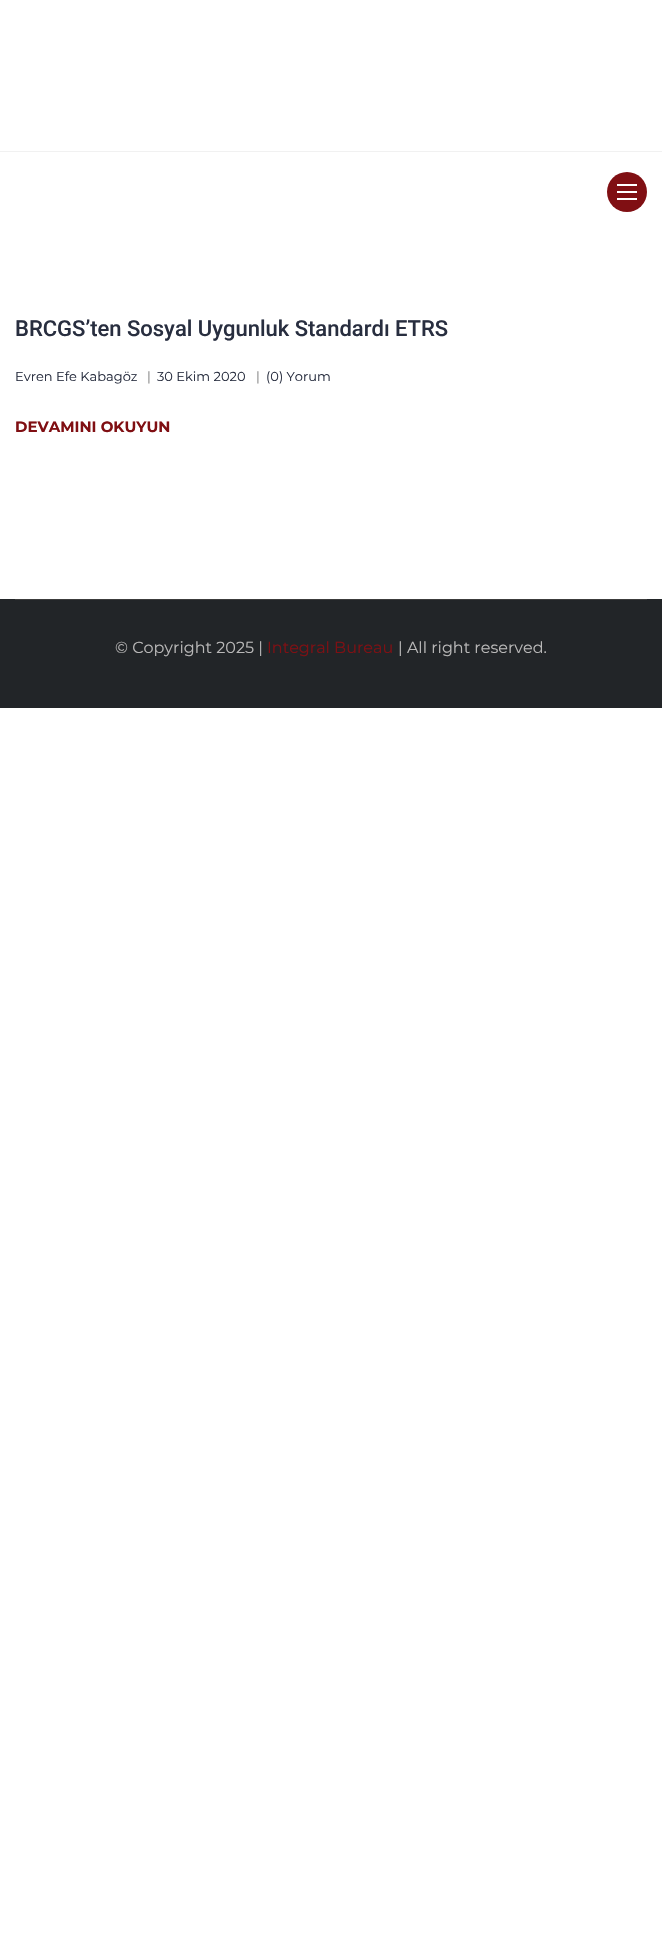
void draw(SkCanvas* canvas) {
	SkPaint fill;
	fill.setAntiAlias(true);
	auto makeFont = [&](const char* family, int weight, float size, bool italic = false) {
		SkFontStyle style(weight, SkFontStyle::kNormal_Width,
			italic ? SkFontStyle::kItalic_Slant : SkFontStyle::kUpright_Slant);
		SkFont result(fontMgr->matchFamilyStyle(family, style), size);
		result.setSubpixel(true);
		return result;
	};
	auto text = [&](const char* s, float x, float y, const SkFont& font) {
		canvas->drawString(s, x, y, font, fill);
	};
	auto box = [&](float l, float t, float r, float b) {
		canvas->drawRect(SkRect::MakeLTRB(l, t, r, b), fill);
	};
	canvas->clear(0xFFFFFFFF);
	fill.setColor(0xFFF1F1F1);
	box(0, 151, 662, 152);
	fill.setColor(0xFF800F13);
	canvas->drawCircle(627, 192, 20, fill);
	fill.setColor(0xFFFFFFFF);
	box(617, 184, 637, 186);
	box(617, 191, 637, 193);
	box(617, 198, 637, 200);
	fill.setColor(0xFF222528);
	box(0, 599, 662, 708);
	fill.setColor(0xFF3C3C3C);
	box(15, 599, 647, 600);
	auto font1 = makeFont("Roboto", 500, 22);
	fill.setColor(0xFF282E3F);
	text("BRCGS’ten Sosyal Uygunluk Standardı ETRS", 15, 336, font1);
	auto font2 = makeFont("Montserrat", 400, 13);
	text("Evren Efe Kabagöz", 15, 381, font2);
	fill.setColor(0xFF838383);
	text("|", 147, 381, font2);
	fill.setColor(0xFF282E3F);
	text("30 Ekim 2020", 157, 381, font2);
	fill.setColor(0xFF838383);
	text("|", 256, 381, font2);
	fill.setColor(0xFF282E3F);
	text("(0) Yorum", 266, 381, font2);
	auto font3 = makeFont("Montserrat", 700, 15);
	fill.setColor(0xFF800F13);
	text("DEVAMINI OKUYUN", 15, 432, font3);
	auto font4 = makeFont("Montserrat", 400, 16);
	fill.setColor(0xFFB9B8B8);
	text("© Copyright 2025 |", 115, 653, font4);
	fill.setColor(0xFF800F13);
	text("Integral Bureau", 267, 653, font4);
	fill.setColor(0xFFB9B8B8);
	text("| All right reserved.", 398, 653, font4);
}
